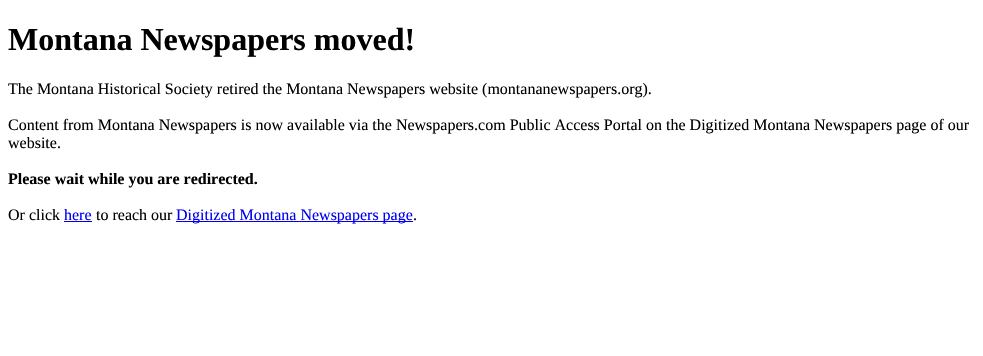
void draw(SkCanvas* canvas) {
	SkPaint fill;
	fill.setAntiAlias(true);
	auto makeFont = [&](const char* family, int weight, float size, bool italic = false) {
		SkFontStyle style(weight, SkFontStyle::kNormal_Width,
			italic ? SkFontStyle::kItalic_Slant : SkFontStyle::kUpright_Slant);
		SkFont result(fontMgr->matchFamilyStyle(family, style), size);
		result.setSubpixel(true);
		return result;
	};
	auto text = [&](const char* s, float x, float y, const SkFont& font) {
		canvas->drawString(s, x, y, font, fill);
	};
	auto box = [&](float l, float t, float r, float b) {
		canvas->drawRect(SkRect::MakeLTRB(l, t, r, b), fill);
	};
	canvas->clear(0xFFFFFFFF);
	fill.setColor(0xFF0000EE);
	box(64, 221, 92, 222);
	box(176, 221, 413, 222);
	auto font1 = makeFont("Liberation Serif", 700, 32);
	fill.setColor(0xFF000000);
	text("Montana Newspapers moved!", 8, 50, font1);
	auto font2 = makeFont("Liberation Serif", 400, 16);
	text("The Montana Historical Society retired the Montana Newspapers website (montananewspapers.org).", 8, 94, font2);
	text("Content from Montana Newspapers is now available via the Newspapers.com Public Access Portal on the Digitized Montana Newspapers page of our", 8, 130, font2);
	text("website.", 8, 148, font2);
	auto font3 = makeFont("Liberation Serif", 700, 16);
	text("Please wait while you are redirected.", 8, 184, font3);
	text("Or click", 8, 220, font2);
	fill.setColor(0xFF0000EE);
	text("here", 64, 220, font2);
	fill.setColor(0xFF000000);
	text("to reach our", 96, 220, font2);
	fill.setColor(0xFF0000EE);
	text("Digitized Montana Newspapers page", 176, 220, font2);
	fill.setColor(0xFF000000);
	text(".", 413, 220, font2);
}
